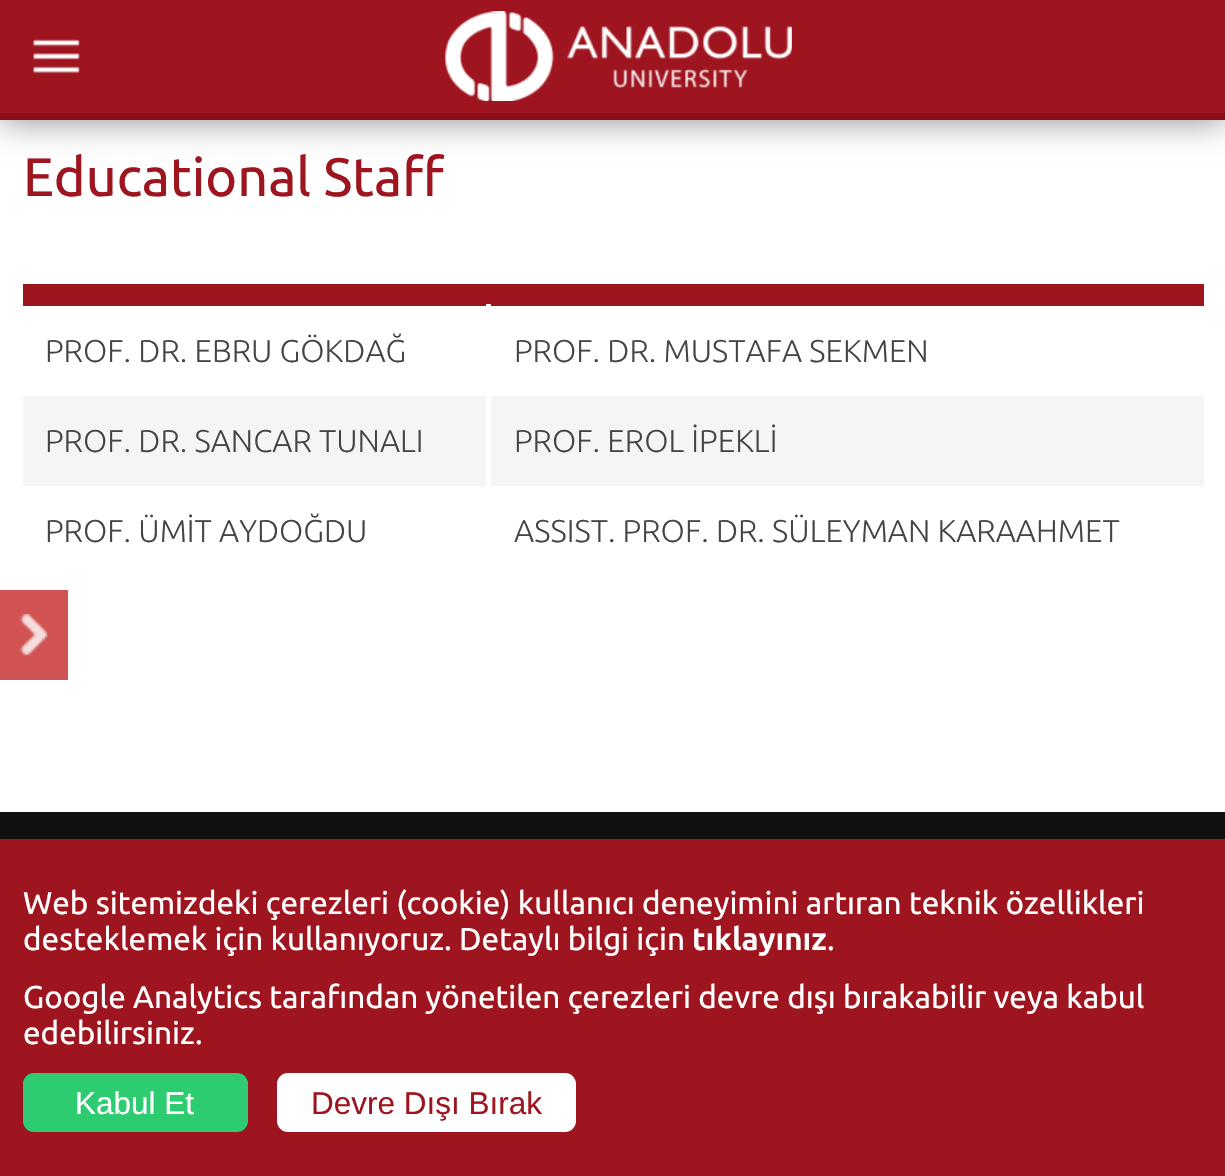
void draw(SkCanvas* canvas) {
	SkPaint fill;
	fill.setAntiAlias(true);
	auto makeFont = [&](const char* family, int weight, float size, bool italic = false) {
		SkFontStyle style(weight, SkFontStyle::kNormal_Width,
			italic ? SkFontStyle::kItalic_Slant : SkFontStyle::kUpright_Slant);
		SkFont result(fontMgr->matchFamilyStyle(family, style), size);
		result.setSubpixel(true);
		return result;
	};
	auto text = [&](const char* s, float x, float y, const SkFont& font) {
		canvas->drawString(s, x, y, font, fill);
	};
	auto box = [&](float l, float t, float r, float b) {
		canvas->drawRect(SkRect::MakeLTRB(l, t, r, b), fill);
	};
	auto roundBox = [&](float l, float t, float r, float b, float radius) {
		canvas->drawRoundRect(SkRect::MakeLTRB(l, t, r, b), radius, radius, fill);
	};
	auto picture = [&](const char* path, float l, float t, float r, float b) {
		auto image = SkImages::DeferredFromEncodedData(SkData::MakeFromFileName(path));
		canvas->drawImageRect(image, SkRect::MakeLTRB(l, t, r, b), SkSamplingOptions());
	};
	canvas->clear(0xFFFFFFFF);
	fill.setColor(0x80000000);
	fill.setMaskFilter(SkMaskFilter::MakeBlur(kNormal_SkBlurStyle, 17));
	canvas->drawRect(SkRect::MakeLTRB(0, 0, 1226, 119), fill);
	fill.setMaskFilter(nullptr);
	fill.setColor(0xFF9E141F);
	box(0, 0, 1225, 113);
	fill.setColor(0xFF8C0D1A);
	box(0, 113, 1225, 120);
	picture("image0.png", 33, 39, 80, 74);
	picture("image1.png", 445, 11, 792, 101);
	fill.setColor(0xFF9E141F);
	box(23, 284, 1204, 306);
	fill.setColor(0xFFFFFFFF);
	box(486, 304, 491, 306);
	fill.setColor(0xFFF5F5F5);
	box(23, 396, 1204, 486);
	fill.setColor(0xFFFFFFFF);
	box(486, 394, 491, 488);
	fill.setColor(0xFFD15353);
	box(0, 590, 68, 680);
	picture("image2.png", 20, 614, 48, 656);
	fill.setColor(0xFF101010);
	box(0, 812, 1225, 839);
	fill.setColor(0xFF9E141F);
	box(0, 839, 1225, 1176);
	fill.setColor(0xFF2ECC71);
	roundBox(23, 1073, 248, 1132, 11);
	fill.setColor(0xFFFFFFFF);
	roundBox(277, 1073, 576, 1132, 11);
	auto font1 = makeFont("Ubuntu", 400, 54);
	fill.setColor(0xFF9E141F);
	text("Educational Staff", 23, 196, font1);
	auto font2 = makeFont("Ubuntu", 300, 31.5f);
	fill.setColor(0xFF444444);
	text("PROF. DR. EBRU GÖKDAĞ", 45, 362, font2);
	text("PROF. DR. MUSTAFA SEKMEN", 514, 362, font2);
	text("PROF. DR. SANCAR TUNALI", 45, 452, font2);
	text("PROF. EROL İPEKLİ", 514, 452, font2);
	text("PROF. ÜMİT AYDOĞDU", 45, 542, font2);
	text("ASSIST. PROF. DR. SÜLEYMAN KARAAHMET", 514, 542, font2);
	auto font3 = makeFont("Ubuntu", 400, 31.5f);
	fill.setColor(0xFFFFFFFF);
	text("Web sitemizdeki çerezleri (cookie) kullanıcı deneyimini artıran teknik özellikleri", 23, 914, font3);
	text("desteklemek için kullanıyoruz. Detaylı bilgi için", 23, 950, font3);
	auto font4 = makeFont("Ubuntu", 700, 31.5f);
	text("tıklayınız", 692, 950, font4);
	text(".", 827, 950, font3);
	text("Google Analytics tarafından yönetilen çerezleri devre dışı bırakabilir veya kabul", 23, 1008, font3);
	text("edebilirsiniz.", 23, 1044, font3);
	auto font5 = makeFont("Liberation Sans", 400, 31.5f);
	text("Kabul Et", 75, 1114, font5);
	fill.setColor(0xFF9E141F);
	text("Devre Dışı Bırak", 311, 1114, font5);
}
